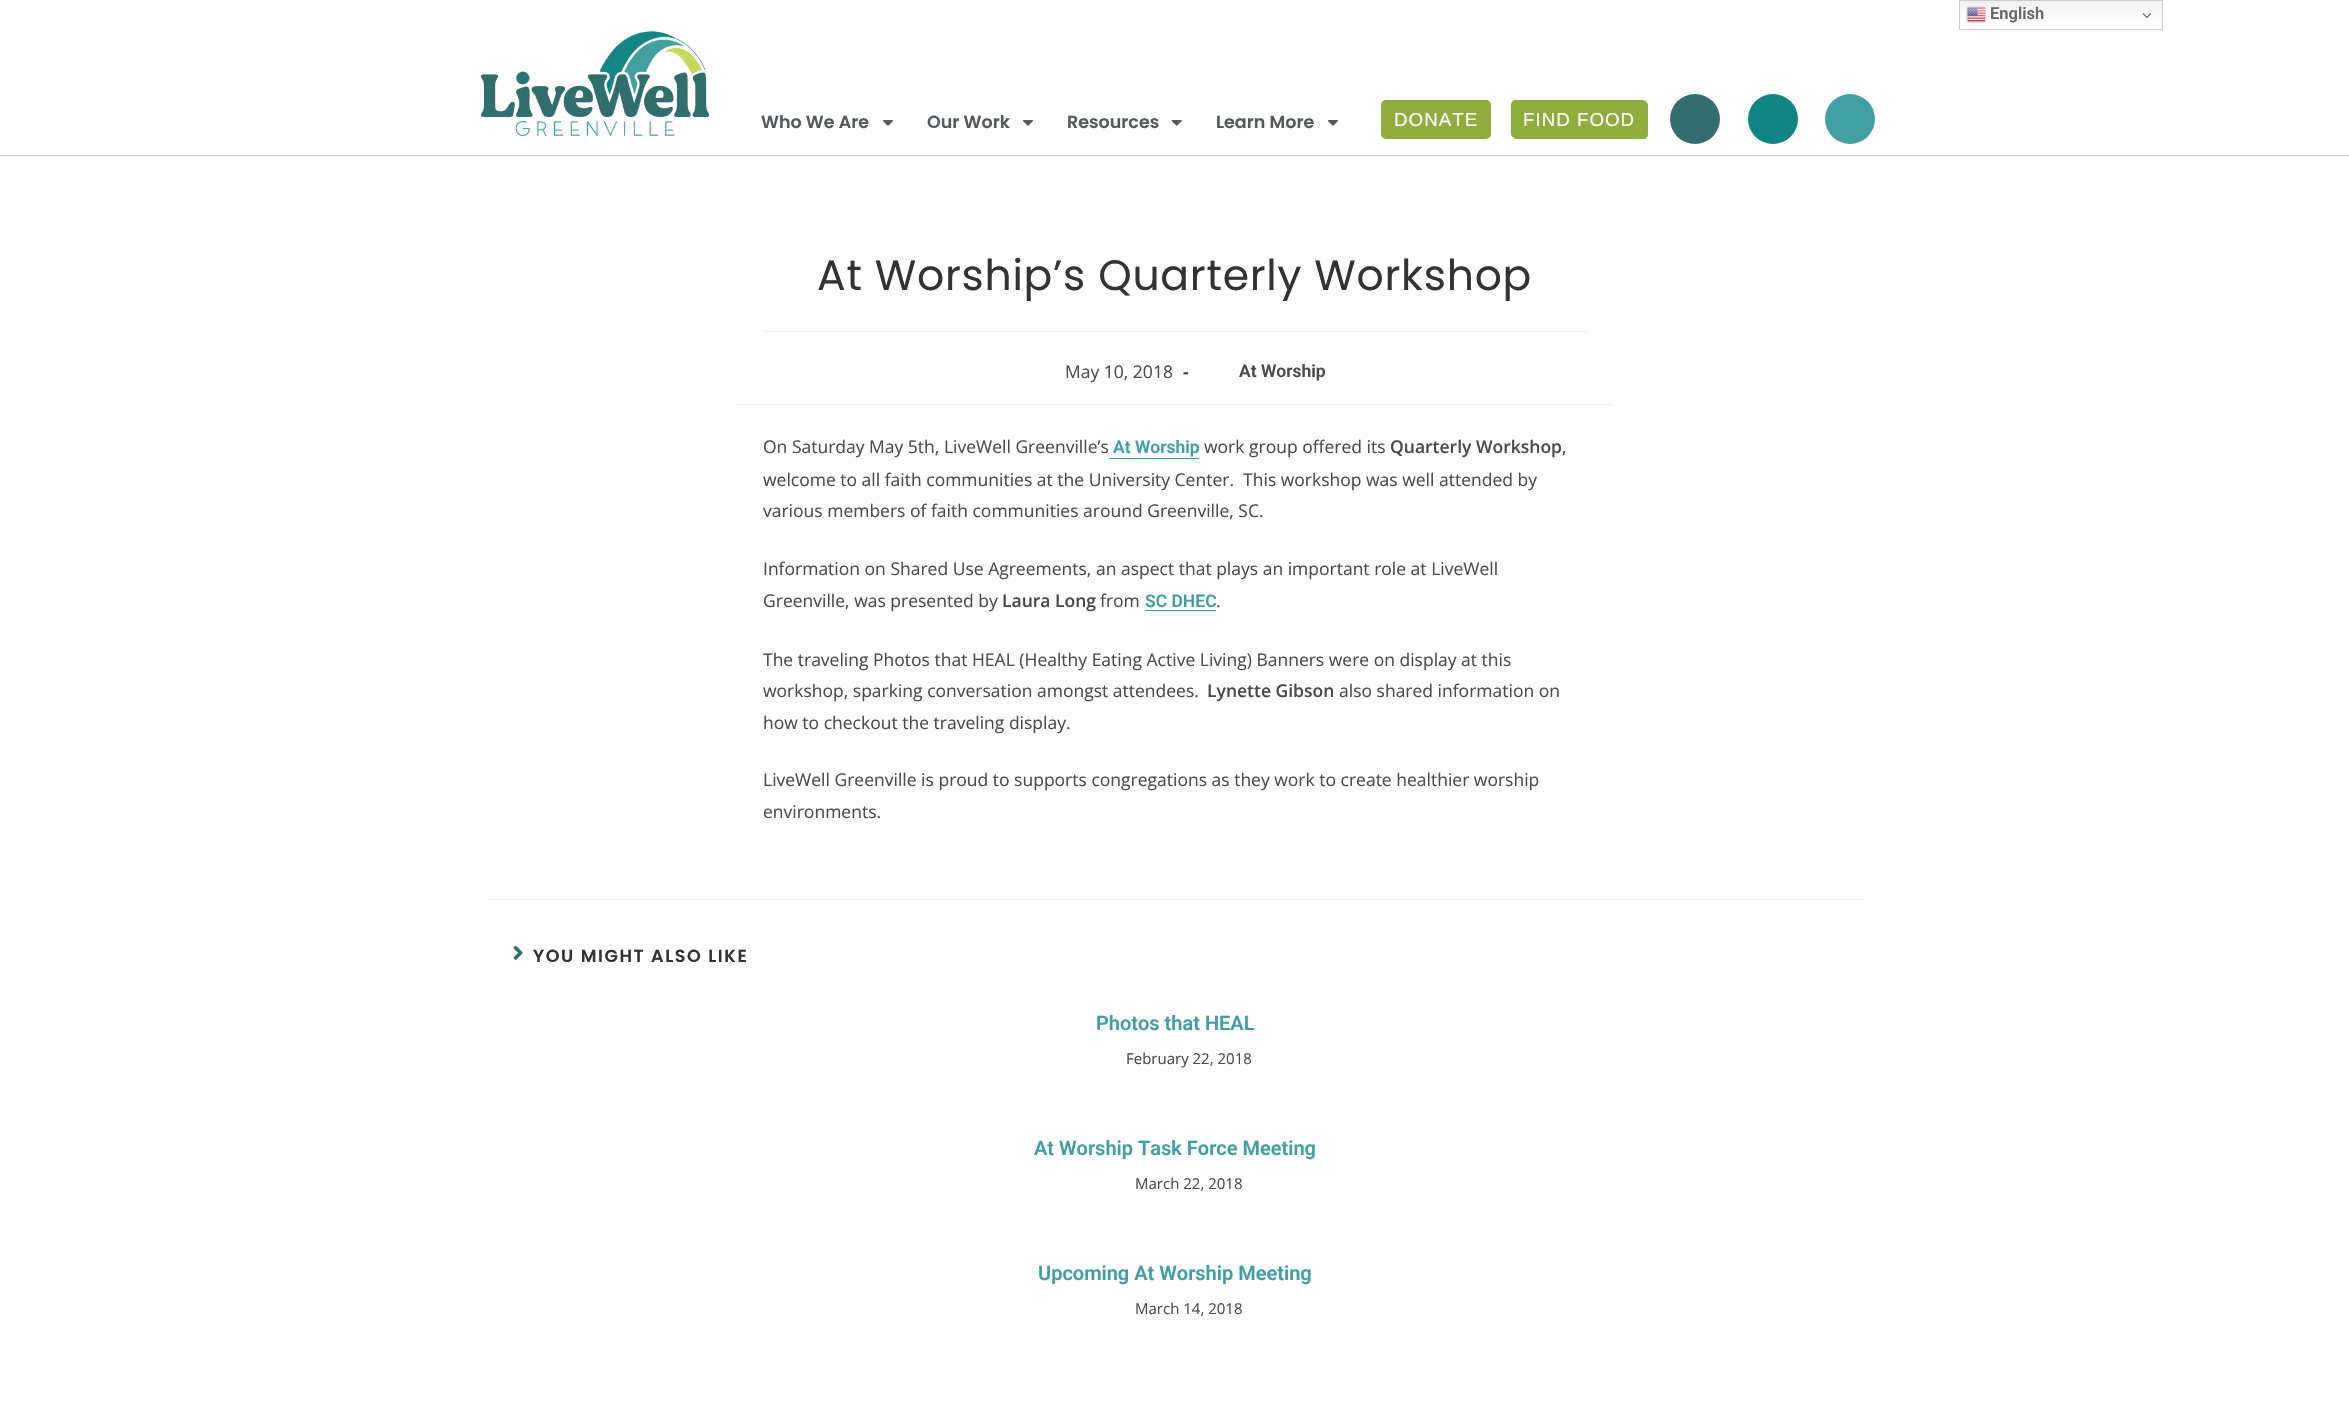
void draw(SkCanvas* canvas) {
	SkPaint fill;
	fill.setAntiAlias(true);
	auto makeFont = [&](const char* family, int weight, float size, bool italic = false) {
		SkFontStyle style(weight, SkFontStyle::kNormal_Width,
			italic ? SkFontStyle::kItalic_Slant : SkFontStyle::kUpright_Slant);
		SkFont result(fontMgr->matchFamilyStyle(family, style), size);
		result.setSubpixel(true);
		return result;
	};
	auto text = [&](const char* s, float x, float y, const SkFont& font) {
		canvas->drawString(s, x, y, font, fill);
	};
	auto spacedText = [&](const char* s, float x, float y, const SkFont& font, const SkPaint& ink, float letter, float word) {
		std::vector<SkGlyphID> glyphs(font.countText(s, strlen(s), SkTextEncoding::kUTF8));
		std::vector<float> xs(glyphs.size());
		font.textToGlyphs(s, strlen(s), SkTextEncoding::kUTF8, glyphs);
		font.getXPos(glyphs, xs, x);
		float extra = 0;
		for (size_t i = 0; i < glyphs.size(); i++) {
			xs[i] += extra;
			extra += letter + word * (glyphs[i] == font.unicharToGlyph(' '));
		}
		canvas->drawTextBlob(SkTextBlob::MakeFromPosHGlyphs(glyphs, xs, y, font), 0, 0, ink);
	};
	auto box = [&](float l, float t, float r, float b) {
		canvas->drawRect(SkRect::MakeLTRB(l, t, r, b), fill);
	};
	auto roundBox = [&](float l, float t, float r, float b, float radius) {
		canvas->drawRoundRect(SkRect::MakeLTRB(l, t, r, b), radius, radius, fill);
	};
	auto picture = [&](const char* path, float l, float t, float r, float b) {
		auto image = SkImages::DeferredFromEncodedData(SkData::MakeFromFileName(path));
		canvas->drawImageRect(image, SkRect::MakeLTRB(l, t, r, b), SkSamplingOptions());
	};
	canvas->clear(0xFFFFFFFF);
	{
		const SkColor colors[] = {0xFFEFEFEF, 0xFFFFFFFF};
		const float stops[] = {0, 0.7f};
		const SkPoint ends[] = {{2061, 0}, {2061, 30}};
		fill.setShader(SkGradientShader::MakeLinear(ends, colors, stops, 2, SkTileMode::kClamp));
		fill.setAlpha(255);
	}
	box(1960, 1, 2162, 18);
	fill.setStyle(SkPaint::kStroke_Style);
	fill.setStrokeWidth(1);
	fill.setShader(nullptr);
	fill.setColor(0xFFCCCCCC);
	canvas->drawRect(SkRect::MakeLTRB(1959.5f, 0.5f, 2162.5f, 29.5f), fill);
	picture("image0.png", 1966, 6, 1987, 24);
	picture("image1.png", 2143, 13, 2151, 19);
	fill.setStyle(SkPaint::kFill_Style);
	fill.setColor(0xFFF1F1F1);
	box(0, 156, 2349, 157);
	fill.setColor(0xFFD3D3D3);
	box(0, 155, 2349, 156);
	picture("image2.png", 480, 31, 710, 137);
	picture("image3.png", 882, 120, 893, 126);
	picture("image3.png", 1022, 120, 1033, 126);
	picture("image4.png", 1171, 120, 1182, 126);
	picture("image3.png", 1327, 120, 1338, 126);
	fill.setColor(0xFF90AE3D);
	roundBox(1381, 100, 1491, 139, 5);
	canvas->drawPath(SkPathBuilder().moveTo(1516, 100).lineTo(1642, 100).cubicTo(1645.5f, 100, 1648, 102.5f, 1648, 106).lineTo(1648, 134).cubicTo(1648, 137, 1646, 139, 1643, 139).lineTo(1517, 139).cubicTo(1513.5f, 139, 1511, 136.5f, 1511, 133).lineTo(1511, 105).cubicTo(1511, 102, 1513, 100, 1516, 100).close().detach(), fill);
	fill.setColor(0xFF336D6D);
	canvas->drawCircle(1695, 119, 25, fill);
	fill.setColor(0xFF118484);
	canvas->drawCircle(1773, 119, 25, fill);
	fill.setColor(0xFF419FA2);
	canvas->drawCircle(1850, 119, 25, fill);
	fill.setColor(0xFFF1F1F1);
	box(763, 331, 1588, 332);
	box(738, 404, 1613, 405);
	fill.setColor(0xFF419FA2);
	box(1109, 458, 1199, 459);
	box(1145, 610, 1216, 611);
	fill.setColor(0xFFF1F1F1);
	box(488, 899, 1863, 900);
	picture("image5.png", 513, 945, 523, 960);
	auto font1 = makeFont("Roboto", 600, 16.5f);
	fill.setColor(0xFF666666);
	text("English", 1990, 19, font1);
	auto font2 = makeFont("Poppins", 600, 17.5f);
	fill.setColor(0xFF54595F);
	text("Who We Are", 761, 128, font2);
	text("Our Work", 927, 128, font2);
	text("Resources", 1067, 128, font2);
	text("Learn More", 1216, 128, font2);
	auto font3 = makeFont("Liberation Sans", 400, 18.75f);
	fill.setColor(0xFFFFFFFF);
	spacedText("DONATE", 1394, 126, font3, fill, 1, 0);
	spacedText("FIND FOOD", 1523, 126, font3, fill, 1, 0);
	auto font4 = makeFont("Poppins", 400, 42.5f);
	fill.setColor(0xFF333333);
	spacedText("At Worship’s Quarterly Workshop", 817, 290, font4, fill, 0.75f, 0);
	auto font5 = makeFont("Open Sans", 400, 17.5f);
	fill.setColor(0xFF4A4A4A);
	text("May 10, 2018", 1065, 378, font5);
	auto font6 = makeFont("Open Sans", 700, 17.5f);
	text("-", 1183, 378, font6);
	auto font7 = makeFont("Roboto", 600, 17.5f);
	text("At Worship", 1239, 377, font7);
	text("On Saturday May 5th, LiveWell Greenville’s", 763, 453, font5);
	fill.setColor(0xFF419FA2);
	text("At Worship", 1113, 453, font7);
	fill.setColor(0xFF4A4A4A);
	text("work group offered its", 1204, 453, font5);
	auto font8 = makeFont("Open Sans", 600, 17.5f);
	text("Quarterly Workshop", 1390, 453, font8);
	text(",", 1562, 453, font5);
	text("welcome to all faith communities at the University Center.  This workshop was well attended by", 763, 486, font5);
	text("various members of faith communities around Greenville, SC.", 763, 517, font5);
	text("Information on Shared Use Agreements, an aspect that plays an important role at LiveWell", 763, 575, font5);
	text("Greenville, was presented by", 763, 607, font5);
	text("Laura Long", 1002, 607, font8);
	text("from", 1100, 607, font5);
	fill.setColor(0xFF419FA2);
	text("SC DHEC", 1145, 607, font7);
	fill.setColor(0xFF4A4A4A);
	text(".", 1216, 607, font5);
	text("The traveling Photos that HEAL (Healthy Eating Active Living) Banners were on display at this", 763, 666, font5);
	text("workshop, sparking conversation amongst attendees.", 763, 697, font5);
	text("Lynette Gibson", 1207, 697, font8);
	text("also shared information on", 1339, 697, font5);
	text("how to checkout the traveling display.", 763, 729, font5);
	text("LiveWell Greenville is proud to supports congregations as they work to create healthier worship", 763, 786, font5);
	text("environments.", 763, 818, font5);
	fill.setColor(0xFF333333);
	spacedText("YOU MIGHT ALSO LIKE", 533, 962, font2, fill, 1.6f, 0);
	auto font9 = makeFont("Roboto", 600, 20);
	fill.setColor(0xFF419FA2);
	text("Photos that HEAL", 1096, 1030, font9);
	auto font10 = makeFont("Open Sans", 400, 15);
	fill.setColor(0xFF4A4A4A);
	text("February 22, 2018", 1126, 1064, font10);
	fill.setColor(0xFF419FA2);
	text("At Worship Task Force Meeting", 1034, 1155, font9);
	fill.setColor(0xFF4A4A4A);
	text("March 22, 2018", 1135, 1189, font10);
	fill.setColor(0xFF419FA2);
	text("Upcoming At Worship Meeting", 1038, 1280, font9);
	fill.setColor(0xFF4A4A4A);
	text("March 14, 2018", 1135, 1314, font10);
}
